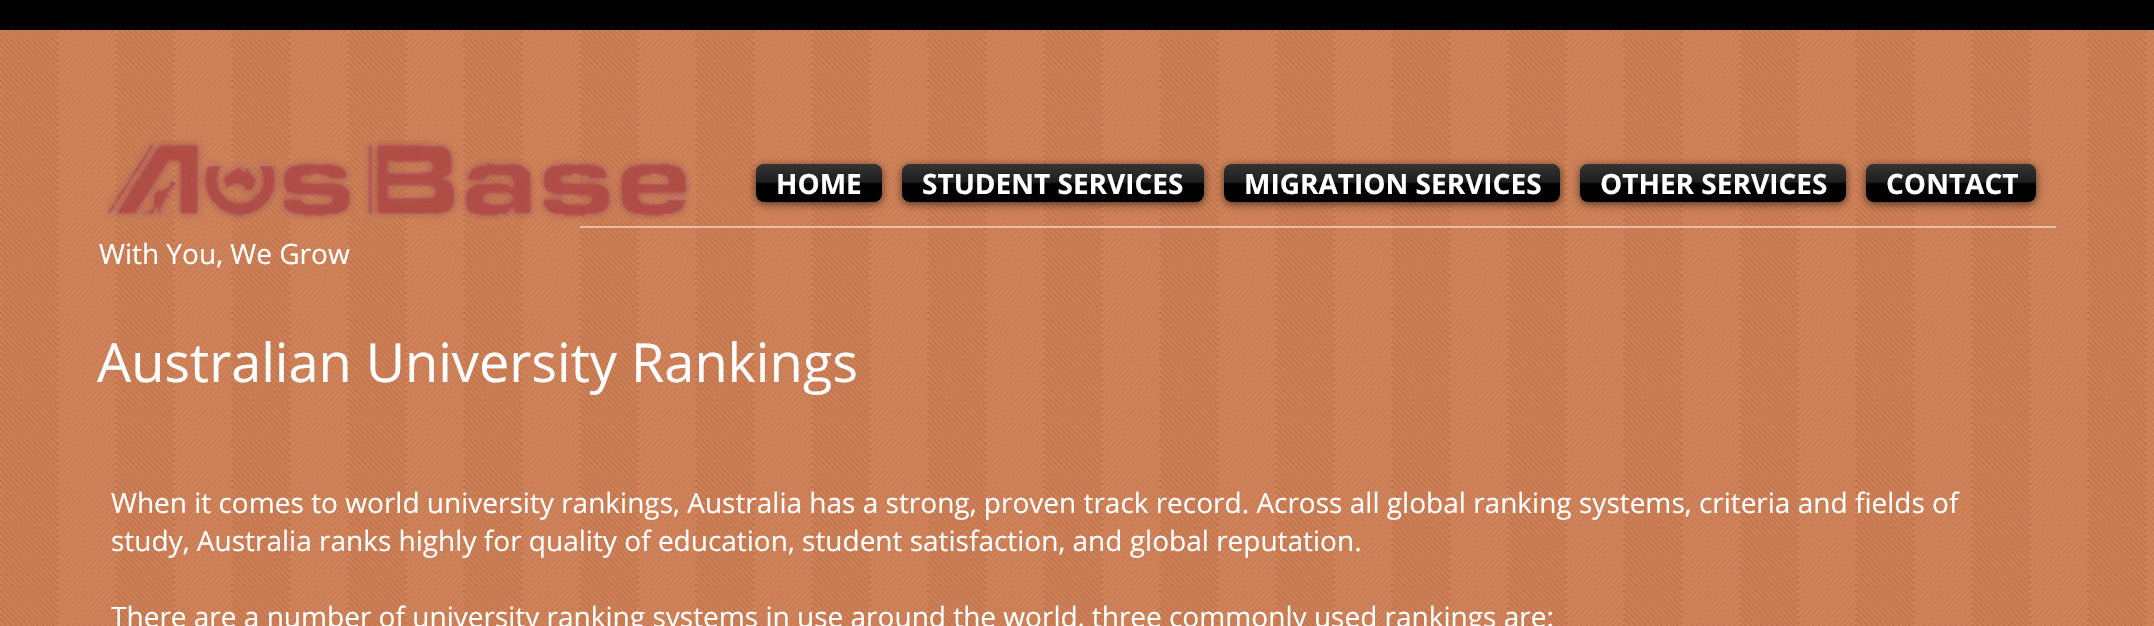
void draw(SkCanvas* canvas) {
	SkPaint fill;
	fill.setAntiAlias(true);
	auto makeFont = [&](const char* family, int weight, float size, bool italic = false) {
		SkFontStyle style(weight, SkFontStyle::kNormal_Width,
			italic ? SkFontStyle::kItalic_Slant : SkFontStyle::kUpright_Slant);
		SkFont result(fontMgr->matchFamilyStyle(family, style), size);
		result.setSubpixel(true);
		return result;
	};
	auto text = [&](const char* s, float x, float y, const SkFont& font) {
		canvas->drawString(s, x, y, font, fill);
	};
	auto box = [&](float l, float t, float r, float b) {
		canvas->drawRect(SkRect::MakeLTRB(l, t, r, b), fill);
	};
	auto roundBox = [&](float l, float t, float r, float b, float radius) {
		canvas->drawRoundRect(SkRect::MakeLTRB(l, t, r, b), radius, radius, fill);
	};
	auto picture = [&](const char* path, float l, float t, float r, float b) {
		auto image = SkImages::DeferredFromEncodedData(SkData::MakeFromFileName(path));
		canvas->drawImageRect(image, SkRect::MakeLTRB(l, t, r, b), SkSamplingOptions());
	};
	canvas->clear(0xFFEB8752);
	picture("image0.png", 0, 30, 2154, 626);
	fill.setColor(0xFF000000);
	box(0, 0, 2154, 30);
	picture("image1.png", 105, 140, 692, 220);
	fill.setColor(0x99000000);
	fill.setMaskFilter(SkMaskFilter::MakeBlur(kNormal_SkBlurStyle, 4));
	canvas->drawRoundRect(SkRect::MakeLTRB(756, 166, 882, 204), 8, 8, fill);
	fill.setMaskFilter(nullptr);
	fill.setColor(0xFF000000);
	roundBox(756, 164, 882, 202, 8);
	picture("image2.png", 756, 164, 882, 184);
	fill.setColor(0x99000000);
	fill.setMaskFilter(SkMaskFilter::MakeBlur(kNormal_SkBlurStyle, 4));
	canvas->drawRoundRect(SkRect::MakeLTRB(902, 166, 1204, 204), 8, 8, fill);
	fill.setMaskFilter(nullptr);
	fill.setColor(0xFF000000);
	roundBox(902, 164, 1204, 202, 8);
	picture("image3.png", 902, 164, 1204, 184);
	fill.setColor(0x99000000);
	fill.setMaskFilter(SkMaskFilter::MakeBlur(kNormal_SkBlurStyle, 4));
	canvas->drawRoundRect(SkRect::MakeLTRB(1224, 166, 1560, 204), 8, 8, fill);
	fill.setMaskFilter(nullptr);
	fill.setColor(0xFF000000);
	roundBox(1224, 164, 1560, 202, 8);
	picture("image4.png", 1224, 164, 1560, 184);
	fill.setColor(0x99000000);
	fill.setMaskFilter(SkMaskFilter::MakeBlur(kNormal_SkBlurStyle, 4));
	canvas->drawRoundRect(SkRect::MakeLTRB(1580, 166, 1846, 204), 8, 8, fill);
	fill.setMaskFilter(nullptr);
	fill.setColor(0xFF000000);
	roundBox(1580, 164, 1846, 202, 8);
	picture("image5.png", 1580, 164, 1846, 184);
	fill.setColor(0x99000000);
	fill.setMaskFilter(SkMaskFilter::MakeBlur(kNormal_SkBlurStyle, 4));
	canvas->drawRoundRect(SkRect::MakeLTRB(1866, 166, 2036, 204), 8, 8, fill);
	fill.setMaskFilter(nullptr);
	fill.setColor(0xFF000000);
	roundBox(1866, 164, 2036, 202, 8);
	picture("image6.png", 1866, 164, 2036, 184);
	fill.setColor(0x80FFFFFF);
	box(580, 226, 2056, 228);
	auto font1 = makeFont("Open Sans", 700, 28);
	fill.setColor(0xFFFFFFFF);
	text("HOME", 776, 194, font1);
	text("STUDENT SERVICES", 922, 194, font1);
	text("MIGRATION SERVICES", 1244, 194, font1);
	text("OTHER SERVICES", 1600, 194, font1);
	text("CONTACT", 1886, 194, font1);
	auto font2 = makeFont("Open Sans", 400, 28);
	text("With You, We Grow", 99, 264, font2);
	auto font3 = makeFont("Open Sans", 400, 54);
	text("Australian University Rankings", 97, 382, font3);
	text("When it comes to world university rankings, Australia has a strong, proven track record. Across all global ranking systems, criteria and fields of", 111, 513, font2);
	text("study, Australia ranks highly for quality of education, student satisfaction, and global reputation.", 111, 551, font2);
	text("There are a number of university ranking systems in use around the world, three commonly used rankings are:", 111, 627, font2);
}
